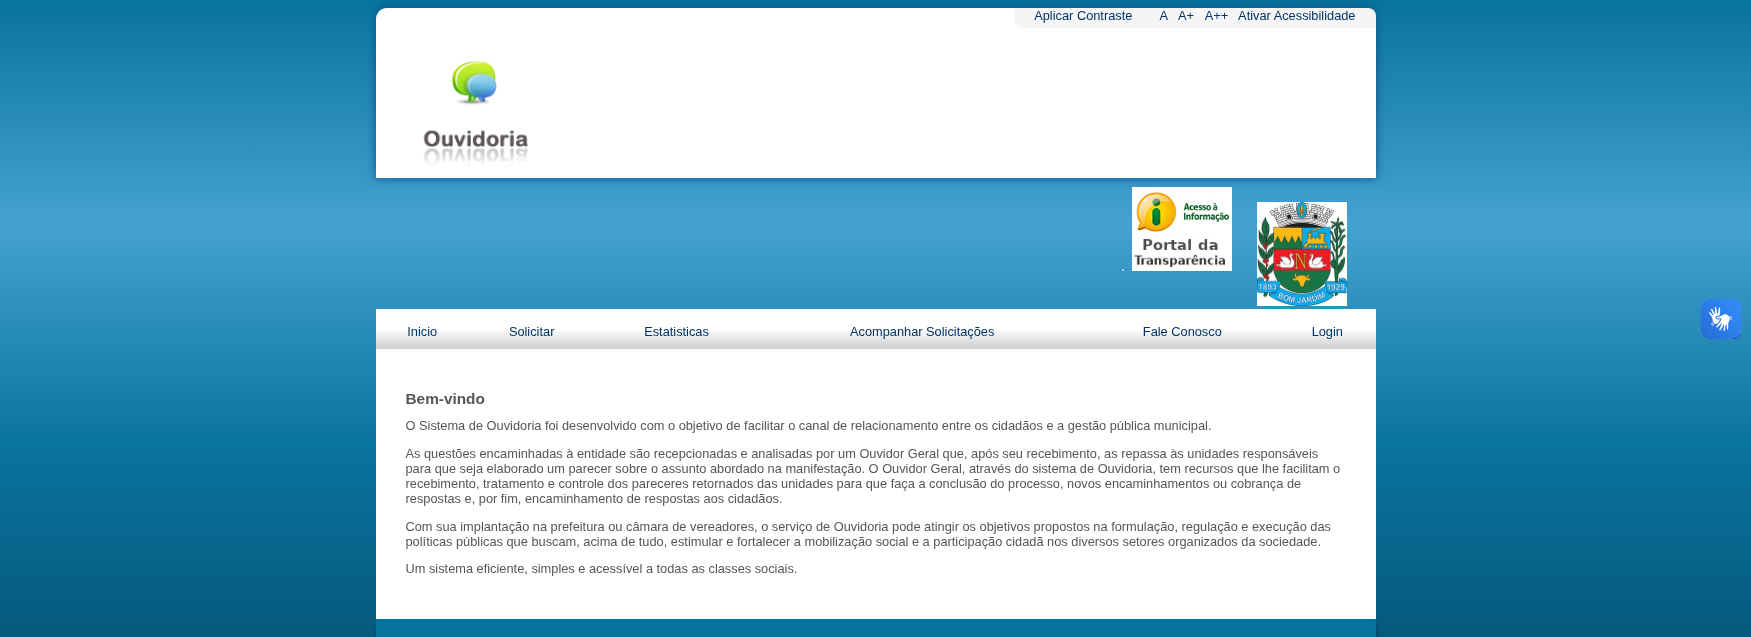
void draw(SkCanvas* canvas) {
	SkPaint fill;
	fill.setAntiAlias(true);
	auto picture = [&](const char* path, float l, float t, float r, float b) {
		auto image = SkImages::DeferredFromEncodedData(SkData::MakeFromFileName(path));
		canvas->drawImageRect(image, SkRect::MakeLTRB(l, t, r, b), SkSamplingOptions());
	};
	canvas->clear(0xFFFFFFFF);
	picture("image0.png", 0, 0, 1751, 637);
}
